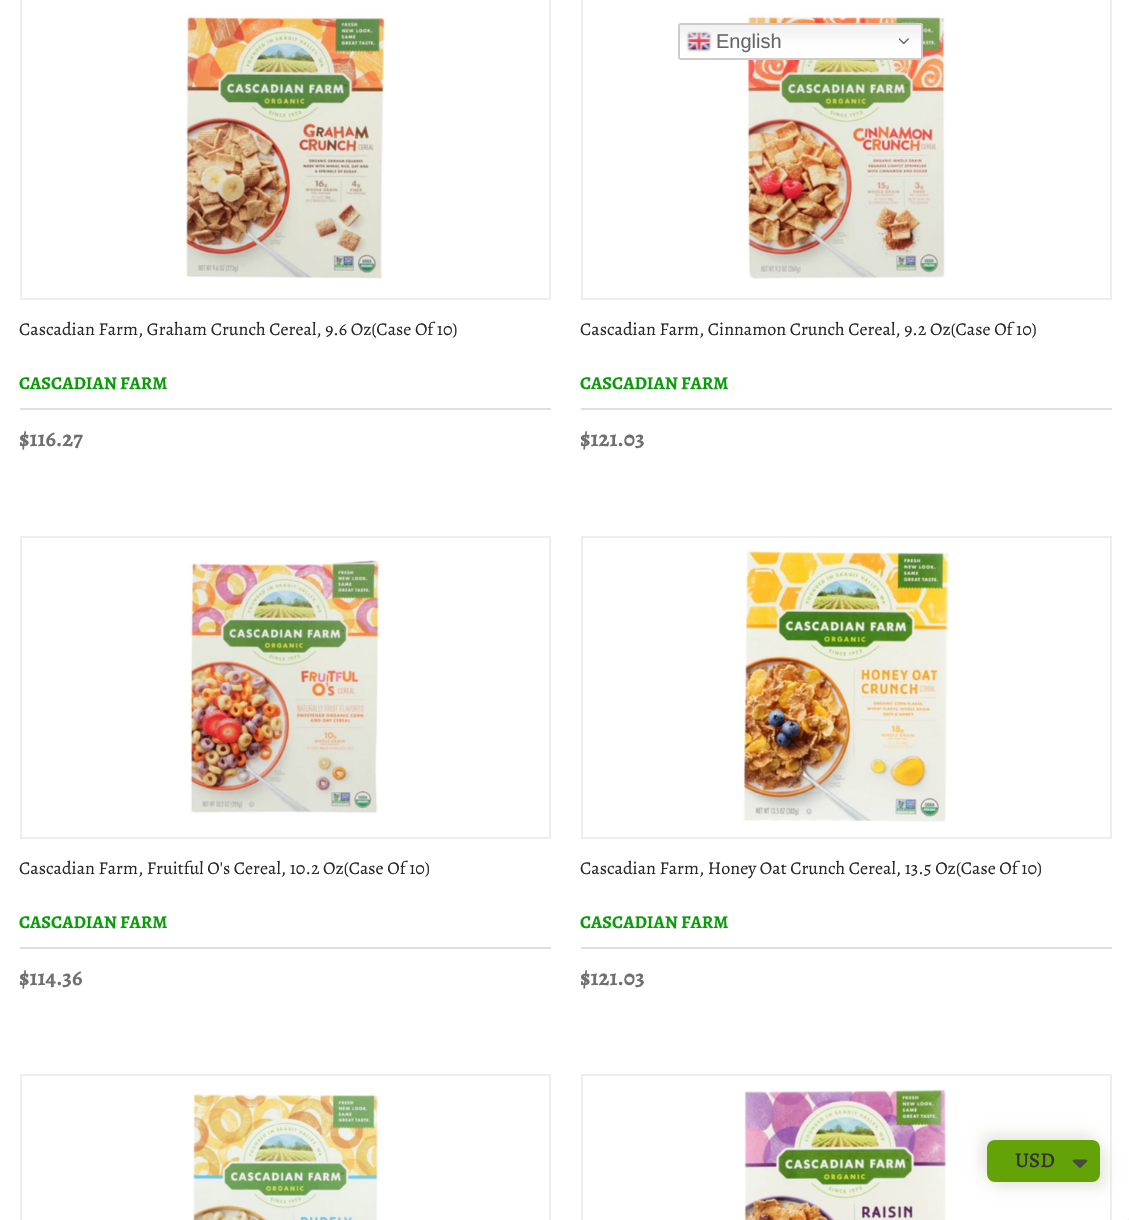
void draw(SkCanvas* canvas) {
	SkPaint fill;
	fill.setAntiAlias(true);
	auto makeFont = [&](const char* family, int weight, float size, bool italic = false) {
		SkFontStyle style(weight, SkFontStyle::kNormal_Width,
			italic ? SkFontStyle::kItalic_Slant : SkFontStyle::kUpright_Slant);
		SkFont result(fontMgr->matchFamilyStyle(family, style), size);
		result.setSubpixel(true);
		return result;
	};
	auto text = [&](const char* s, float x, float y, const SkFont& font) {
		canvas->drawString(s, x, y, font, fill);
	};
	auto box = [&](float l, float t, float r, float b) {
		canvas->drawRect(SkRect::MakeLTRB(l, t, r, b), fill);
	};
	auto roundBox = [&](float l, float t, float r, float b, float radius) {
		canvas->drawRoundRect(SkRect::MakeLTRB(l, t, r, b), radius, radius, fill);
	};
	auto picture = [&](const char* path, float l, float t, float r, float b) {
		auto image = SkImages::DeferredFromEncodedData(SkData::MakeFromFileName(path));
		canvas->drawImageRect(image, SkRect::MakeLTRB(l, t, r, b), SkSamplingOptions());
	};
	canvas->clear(0xFFFFFFFF);
	fill.setStyle(SkPaint::kStroke_Style);
	fill.setStrokeWidth(2);
	fill.setColor(0xFFEEEEEE);
	canvas->drawRect(SkRect::MakeLTRB(582, -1, 1111, 299), fill);
	picture("image3.png", 747, 13, 946, 279);
	fill.setStyle(SkPaint::kFill_Style);
	{
		const SkColor colors[] = {0xFFEFEFEF, 0xFFFFFFFF};
		const float stops[] = {0, 0.7f};
		const SkPoint ends[] = {{800, 22}, {800, 60}};
		fill.setShader(SkGradientShader::MakeLinear(ends, colors, stops, 2, SkTileMode::kClamp));
		fill.setAlpha(255);
	}
	roundBox(678, 23, 923, 60, 3);
	fill.setShader(nullptr);
	fill.setColor(0xFFCCCCCC);
	canvas->drawPath(SkPathBuilder(SkPathFillType::kEvenOdd).moveTo(681, 23).cubicTo(679, 23, 678, 24, 678, 26).lineTo(678, 57).cubicTo(678, 59, 679, 60, 681, 60).lineTo(920, 60).cubicTo(922, 60, 923, 59, 923, 57).lineTo(923, 26).cubicTo(923, 24, 922, 23, 920, 23).close().moveTo(680, 25).lineTo(680, 58).lineTo(921, 58).lineTo(921, 25).close().detach(), fill);
	picture("image0.png", 686, 31, 712, 52);
	picture("image1.png", 899, 38, 909, 45);
	fill.setStyle(SkPaint::kStroke_Style);
	fill.setColor(0xFFEEEEEE);
	canvas->drawRect(SkRect::MakeLTRB(21, -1, 550, 299), fill);
	picture("image2.png", 186, 13, 386, 279);
	fill.setStyle(SkPaint::kFill_Style);
	fill.setColor(0xFFDFDFDF);
	box(20, 408, 551, 410);
	box(581, 408, 1112, 410);
	fill.setStyle(SkPaint::kStroke_Style);
	fill.setColor(0xFFEEEEEE);
	canvas->drawRect(SkRect::MakeLTRB(21, 537, 550, 838), fill);
	picture("image4.png", 187, 560, 380, 815);
	fill.setStyle(SkPaint::kFill_Style);
	fill.setColor(0xFFDFDFDF);
	box(20, 947, 551, 949);
	fill.setStyle(SkPaint::kStroke_Style);
	fill.setColor(0xFFEEEEEE);
	canvas->drawRect(SkRect::MakeLTRB(582, 537, 1111, 838), fill);
	picture("image5.png", 742, 551, 952, 822);
	fill.setStyle(SkPaint::kFill_Style);
	fill.setColor(0xFFDFDFDF);
	box(581, 947, 1112, 949);
	fill.setStyle(SkPaint::kStroke_Style);
	fill.setColor(0xFFEEEEEE);
	canvas->drawRect(SkRect::MakeLTRB(21, 1075, 550, 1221), fill);
	picture("image6.png", 193, 1090, 379, 1220);
	canvas->drawRect(SkRect::MakeLTRB(582, 1075, 1111, 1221), fill);
	picture("image7.png", 744, 1089, 946, 1220);
	fill.setStyle(SkPaint::kFill_Style);
	fill.setColor(0xFFE8E8E2);
	fill.setMaskFilter(SkMaskFilter::MakeBlur(kNormal_SkBlurStyle, 7));
	canvas->drawRoundRect(SkRect::MakeLTRB(981, 1134, 1094, 1176), 8, 8, fill);
	fill.setMaskFilter(nullptr);
	fill.setMaskFilter(SkMaskFilter::MakeBlur(kNormal_SkBlurStyle, 7));
	canvas->drawRoundRect(SkRect::MakeLTRB(993, 1146, 1106, 1188), 8, 8, fill);
	fill.setMaskFilter(nullptr);
	fill.setColor(0xFF63A308);
	roundBox(987, 1140, 1100, 1182, 8);
	fill.setColor(0xFF474942);
	canvas->drawPath(SkPathBuilder().moveTo(1075.5f, 1159.5f).cubicTo(1074, 1159.5f, 1073, 1160, 1072.5f, 1161).lineTo(1080, 1168.5f).lineTo(1087.5f, 1161).cubicTo(1087, 1160, 1086, 1159.5f, 1084.5f, 1159.5f).close().detach(), fill);
	fill.setColor(0xFFF5F5F5);
	box(1127, 1218, 1129, 1220);
	auto font1 = makeFont("Liberation Sans", 400, 20);
	fill.setColor(0xFF666666);
	text("English", 716, 48, font1);
	auto font2 = makeFont("Alegreya", 400, 18);
	fill.setColor(0xFF282727);
	text("Cascadian Farm, Graham Crunch Cereal, 9.6 Oz(Case Of 10)", 19, 335, font2);
	auto font3 = makeFont("Alegreya", 700, 18);
	fill.setColor(0xFF0C9B0B);
	text("CASCADIAN FARM", 19, 389, font3);
	auto font4 = makeFont("Alegreya", 700, 22.5f);
	fill.setColor(0xFF707070);
	text("$116.27", 19, 446, font4);
	fill.setColor(0xFF282727);
	text("Cascadian Farm, Cinnamon Crunch Cereal, 9.2 Oz(Case Of 10)", 580, 335, font2);
	fill.setColor(0xFF0C9B0B);
	text("CASCADIAN FARM", 580, 389, font3);
	fill.setColor(0xFF707070);
	text("$121.03", 580, 446, font4);
	fill.setColor(0xFF282727);
	text("Cascadian Farm, Fruitful O's Cereal, 10.2 Oz(Case Of 10)", 19, 874, font2);
	fill.setColor(0xFF0C9B0B);
	text("CASCADIAN FARM", 19, 928, font3);
	fill.setColor(0xFF707070);
	text("$114.36", 19, 985, font4);
	fill.setColor(0xFF282727);
	text("Cascadian Farm, Honey Oat Crunch Cereal, 13.5 Oz(Case Of 10)", 580, 874, font2);
	fill.setColor(0xFF0C9B0B);
	text("CASCADIAN FARM", 580, 928, font3);
	fill.setColor(0xFF707070);
	text("$121.03", 580, 985, font4);
	auto font5 = makeFont("Alegreya", 500, 21);
	fill.setColor(0xFF333333);
	text("USD", 1015, 1167, font5);
}
